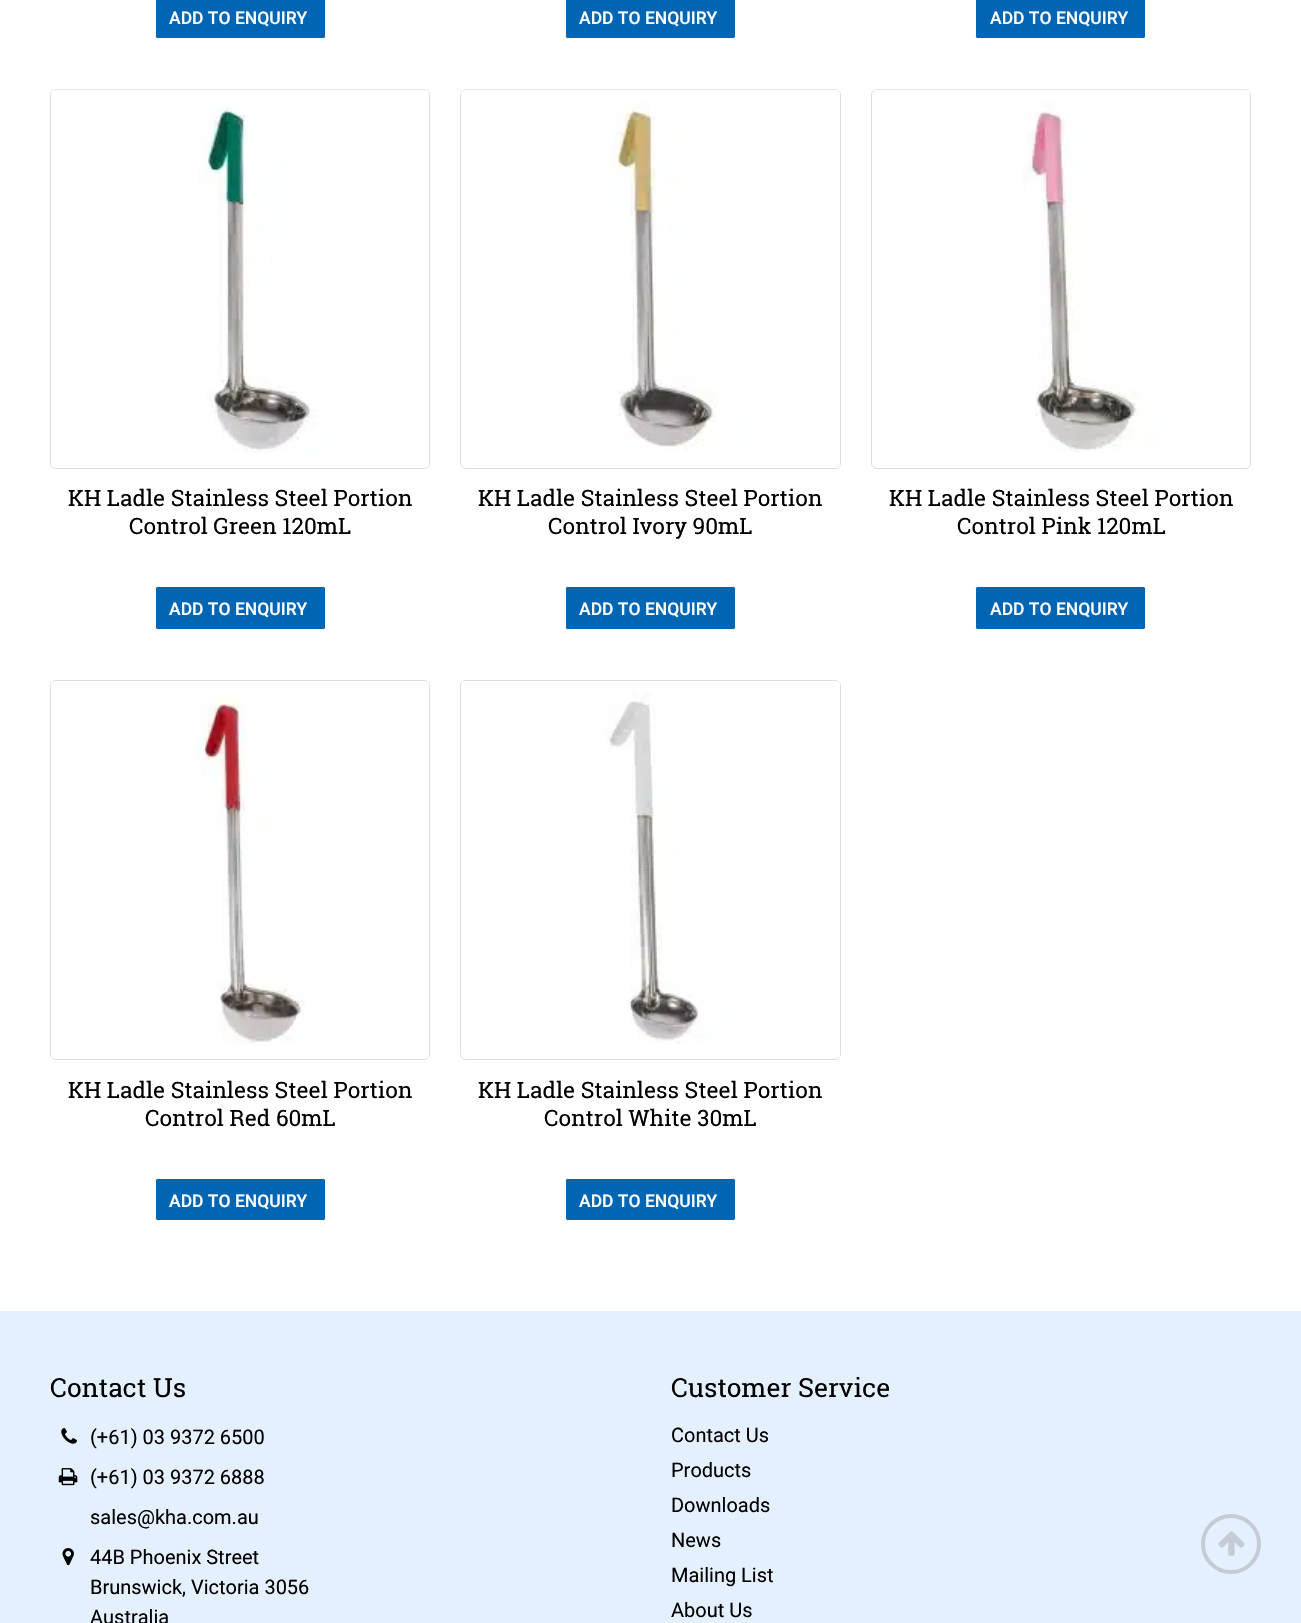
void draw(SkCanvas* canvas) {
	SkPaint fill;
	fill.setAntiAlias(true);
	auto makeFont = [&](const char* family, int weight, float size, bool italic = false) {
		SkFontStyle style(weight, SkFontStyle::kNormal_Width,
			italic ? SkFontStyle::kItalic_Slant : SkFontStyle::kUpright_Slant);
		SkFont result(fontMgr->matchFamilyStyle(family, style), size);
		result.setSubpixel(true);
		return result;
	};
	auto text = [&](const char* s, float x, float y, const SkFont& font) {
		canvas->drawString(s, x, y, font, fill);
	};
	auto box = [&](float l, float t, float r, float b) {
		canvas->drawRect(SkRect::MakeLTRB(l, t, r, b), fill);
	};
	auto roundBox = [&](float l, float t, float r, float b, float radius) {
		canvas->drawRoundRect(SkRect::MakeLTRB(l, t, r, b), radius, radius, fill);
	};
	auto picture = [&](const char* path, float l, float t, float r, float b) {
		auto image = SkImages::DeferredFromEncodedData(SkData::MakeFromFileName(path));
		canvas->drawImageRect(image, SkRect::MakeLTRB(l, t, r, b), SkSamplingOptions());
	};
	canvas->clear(0xFFFFFFFF);
	fill.setColor(0xFF0066B4);
	canvas->drawRoundRect(SkRect::MakeLTRB(155.5f, -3.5f, 325.5f, 38.5f), 2, 2, fill);
	fill.setStyle(SkPaint::kStroke_Style);
	fill.setStrokeWidth(1);
	fill.setColor(0xFFFFFFFF);
	canvas->drawRoundRect(SkRect::MakeLTRB(155.5f, -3.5f, 325.5f, 38.5f), 2, 2, fill);
	fill.setStyle(SkPaint::kFill_Style);
	fill.setColor(0xFF0066B4);
	canvas->drawRoundRect(SkRect::MakeLTRB(565.5f, -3.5f, 735.5f, 38.5f), 2, 2, fill);
	fill.setStyle(SkPaint::kStroke_Style);
	fill.setColor(0xFFFFFFFF);
	canvas->drawRoundRect(SkRect::MakeLTRB(565.5f, -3.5f, 735.5f, 38.5f), 2, 2, fill);
	fill.setStyle(SkPaint::kFill_Style);
	fill.setColor(0xFF0066B4);
	canvas->drawRoundRect(SkRect::MakeLTRB(975.5f, -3.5f, 1145.5f, 38.5f), 2, 2, fill);
	fill.setStyle(SkPaint::kStroke_Style);
	fill.setColor(0xFFFFFFFF);
	canvas->drawRoundRect(SkRect::MakeLTRB(975.5f, -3.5f, 1145.5f, 38.5f), 2, 2, fill);
	fill.setColor(0xFFDDDDDD);
	canvas->drawRoundRect(SkRect::MakeLTRB(50.5f, 89.5f, 429.5f, 468.5f), 5.5f, 5.5f, fill);
	fill.setStyle(SkPaint::kFill_Style);
	fill.setColor(0xFFFFFFFF);
	roundBox(51, 90, 429, 468, 5);
	picture("image0.png", 52, 89, 428, 452);
	fill.setColor(0xFF0066B4);
	canvas->drawRoundRect(SkRect::MakeLTRB(155.5f, 586.5f, 325.5f, 629.5f), 2, 2, fill);
	fill.setStyle(SkPaint::kStroke_Style);
	fill.setColor(0xFFFFFFFF);
	canvas->drawRoundRect(SkRect::MakeLTRB(155.5f, 586.5f, 325.5f, 629.5f), 2, 2, fill);
	fill.setColor(0xFFDDDDDD);
	canvas->drawRoundRect(SkRect::MakeLTRB(460.5f, 89.5f, 840.5f, 468.5f), 5.5f, 5.5f, fill);
	fill.setStyle(SkPaint::kFill_Style);
	fill.setColor(0xFFFFFFFF);
	roundBox(461, 90, 840, 468, 5);
	picture("image1.png", 462, 89, 840, 453);
	fill.setColor(0xFF0066B4);
	canvas->drawRoundRect(SkRect::MakeLTRB(565.5f, 586.5f, 735.5f, 629.5f), 2, 2, fill);
	fill.setStyle(SkPaint::kStroke_Style);
	fill.setColor(0xFFFFFFFF);
	canvas->drawRoundRect(SkRect::MakeLTRB(565.5f, 586.5f, 735.5f, 629.5f), 2, 2, fill);
	fill.setColor(0xFFDDDDDD);
	canvas->drawRoundRect(SkRect::MakeLTRB(871.5f, 89.5f, 1250.5f, 468.5f), 5.5f, 5.5f, fill);
	fill.setStyle(SkPaint::kFill_Style);
	fill.setColor(0xFFFFFFFF);
	roundBox(873, 90, 1250, 468, 5);
	picture("image2.png", 873, 89, 1250, 452);
	fill.setColor(0xFF0066B4);
	canvas->drawRoundRect(SkRect::MakeLTRB(975.5f, 586.5f, 1145.5f, 629.5f), 2, 2, fill);
	fill.setStyle(SkPaint::kStroke_Style);
	fill.setColor(0xFFFFFFFF);
	canvas->drawRoundRect(SkRect::MakeLTRB(975.5f, 586.5f, 1145.5f, 629.5f), 2, 2, fill);
	fill.setColor(0xFFDDDDDD);
	canvas->drawRoundRect(SkRect::MakeLTRB(50.5f, 680.5f, 429.5f, 1059.5f), 5.5f, 5.5f, fill);
	fill.setStyle(SkPaint::kFill_Style);
	fill.setColor(0xFFFFFFFF);
	roundBox(51, 681, 429, 1059, 5);
	picture("image3.png", 52, 681, 428, 1044);
	fill.setColor(0xFF0066B4);
	canvas->drawRoundRect(SkRect::MakeLTRB(155.5f, 1178.5f, 325.5f, 1220.5f), 2, 2, fill);
	fill.setStyle(SkPaint::kStroke_Style);
	fill.setColor(0xFFFFFFFF);
	canvas->drawRoundRect(SkRect::MakeLTRB(155.5f, 1178.5f, 325.5f, 1220.5f), 2, 2, fill);
	fill.setColor(0xFFDDDDDD);
	canvas->drawRoundRect(SkRect::MakeLTRB(460.5f, 680.5f, 840.5f, 1059.5f), 5.5f, 5.5f, fill);
	fill.setStyle(SkPaint::kFill_Style);
	fill.setColor(0xFFFFFFFF);
	roundBox(461, 681, 840, 1059, 5);
	picture("image4.png", 462, 681, 840, 1044);
	fill.setColor(0xFF0066B4);
	canvas->drawRoundRect(SkRect::MakeLTRB(565.5f, 1178.5f, 735.5f, 1220.5f), 2, 2, fill);
	fill.setStyle(SkPaint::kStroke_Style);
	fill.setColor(0xFFFFFFFF);
	canvas->drawRoundRect(SkRect::MakeLTRB(565.5f, 1178.5f, 735.5f, 1220.5f), 2, 2, fill);
	fill.setStyle(SkPaint::kFill_Style);
	fill.setColor(0xFFE5F0FF);
	box(0, 1311, 1301, 1623);
	picture("image5.png", 61, 1428, 77, 1444);
	picture("image6.png", 58, 1468, 78, 1486);
	picture("image7.png", 62, 1548, 74, 1566);
	fill.setStyle(SkPaint::kStroke_Style);
	fill.setStrokeWidth(4);
	fill.setColor(0xFFC6CCD5);
	canvas->drawCircle(1231, 1544, 28, fill);
	picture("image8.png", 1218, 1531, 1245, 1556);
	auto font1 = makeFont("Roboto", 500, 17.5f);
	fill.setStyle(SkPaint::kFill_Style);
	fill.setColor(0xFFFFFFFF);
	text("ADD TO ENQUIRY", 169, 24, font1);
	text("ADD TO ENQUIRY", 579, 24, font1);
	text("ADD TO ENQUIRY", 990, 24, font1);
	auto font2 = makeFont("Roboto Slab", 400, 22.5f);
	fill.setColor(0xFF000000);
	text("KH Ladle Stainless Steel Portion", 68, 506, font2);
	text("Control Green 120mL", 129, 534, font2);
	fill.setColor(0xFFFFFFFF);
	text("ADD TO ENQUIRY", 169, 615, font1);
	fill.setColor(0xFF000000);
	text("KH Ladle Stainless Steel Portion", 478, 506, font2);
	text("Control Ivory 90mL", 548, 534, font2);
	fill.setColor(0xFFFFFFFF);
	text("ADD TO ENQUIRY", 579, 615, font1);
	fill.setColor(0xFF000000);
	text("KH Ladle Stainless Steel Portion", 889, 506, font2);
	text("Control Pink 120mL", 957, 534, font2);
	fill.setColor(0xFFFFFFFF);
	text("ADD TO ENQUIRY", 990, 615, font1);
	fill.setColor(0xFF000000);
	text("KH Ladle Stainless Steel Portion", 68, 1098, font2);
	text("Control Red 60mL", 145, 1126, font2);
	fill.setColor(0xFFFFFFFF);
	text("ADD TO ENQUIRY", 169, 1207, font1);
	fill.setColor(0xFF000000);
	text("KH Ladle Stainless Steel Portion", 478, 1098, font2);
	text("Control White 30mL", 544, 1126, font2);
	fill.setColor(0xFFFFFFFF);
	text("ADD TO ENQUIRY", 579, 1207, font1);
	auto font3 = makeFont("Roboto Slab", 400, 26.25f);
	fill.setColor(0xFF000000);
	text("Contact Us", 50, 1397, font3);
	auto font4 = makeFont("Roboto", 400, 20);
	text("(+61) 03 9372 6500", 90, 1444, font4);
	text("(+61) 03 9372 6888", 90, 1484, font4);
	text("sales@kha.com.au", 90, 1524, font4);
	text("44B Phoenix Street", 90, 1564, font4);
	text("Brunswick, Victoria 3056", 90, 1594, font4);
	text("Australia", 90, 1624, font4);
	text("Customer Service", 671, 1397, font3);
	text("Contact Us", 671, 1442, font4);
	text("Products", 671, 1477, font4);
	text("Downloads", 671, 1512, font4);
	text("News", 671, 1547, font4);
	text("Mailing List", 671, 1582, font4);
	text("About Us", 671, 1617, font4);
}
